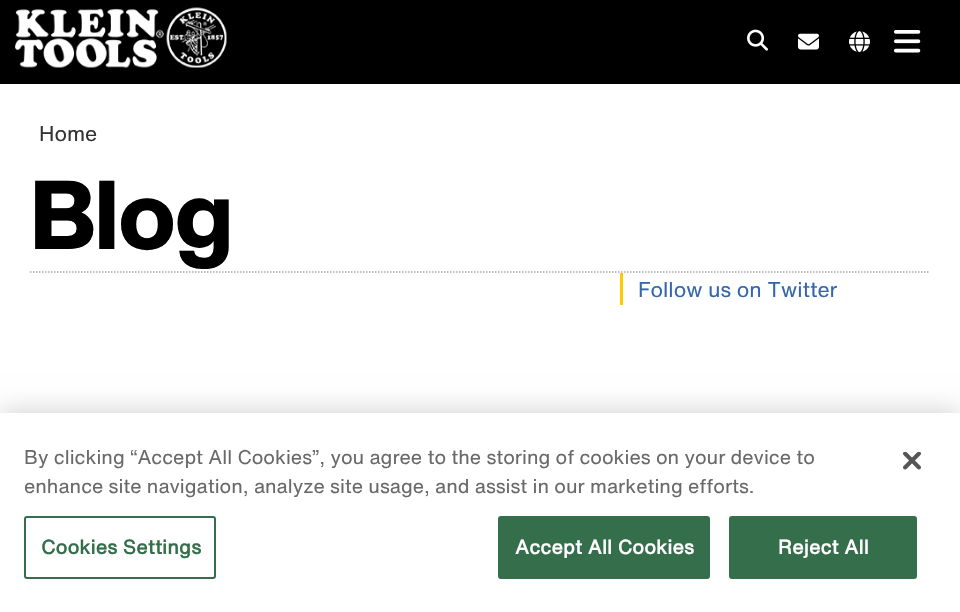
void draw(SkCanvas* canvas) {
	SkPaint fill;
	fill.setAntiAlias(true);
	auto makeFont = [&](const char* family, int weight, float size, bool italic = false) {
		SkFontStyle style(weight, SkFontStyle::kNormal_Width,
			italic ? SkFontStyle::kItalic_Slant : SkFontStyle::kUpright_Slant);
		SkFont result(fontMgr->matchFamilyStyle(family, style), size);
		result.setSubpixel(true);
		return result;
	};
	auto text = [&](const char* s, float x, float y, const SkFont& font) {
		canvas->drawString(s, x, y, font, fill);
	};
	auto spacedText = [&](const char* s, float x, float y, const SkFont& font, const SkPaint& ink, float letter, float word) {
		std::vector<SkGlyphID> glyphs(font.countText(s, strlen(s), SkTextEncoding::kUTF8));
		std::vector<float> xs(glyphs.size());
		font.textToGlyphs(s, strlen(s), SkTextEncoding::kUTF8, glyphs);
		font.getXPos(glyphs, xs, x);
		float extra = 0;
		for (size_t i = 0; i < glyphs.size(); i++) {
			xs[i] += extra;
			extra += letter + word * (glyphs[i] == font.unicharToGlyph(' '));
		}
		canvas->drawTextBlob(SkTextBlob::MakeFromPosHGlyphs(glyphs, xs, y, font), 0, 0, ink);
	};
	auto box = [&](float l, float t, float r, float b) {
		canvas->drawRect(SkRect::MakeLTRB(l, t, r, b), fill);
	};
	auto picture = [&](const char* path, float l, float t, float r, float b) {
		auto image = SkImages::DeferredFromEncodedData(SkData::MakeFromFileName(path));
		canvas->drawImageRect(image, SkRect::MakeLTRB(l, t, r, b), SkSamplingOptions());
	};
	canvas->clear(0xFFFFFFFF);
	fill.setColor(0xFF000000);
	box(0, 0, 960, 84);
	picture("image0.png", 15, 7, 227, 68);
	picture("image1.png", 747, 29, 768, 51);
	picture("image2.png", 798, 33, 819, 50);
	picture("image3.png", 849, 31, 870, 53);
	picture("image4.png", 894, 30, 921, 53);
	fill.setStyle(SkPaint::kStroke_Style);
	fill.setStrokeWidth(1.5f);
	fill.setColor(0xFFAAAAAA);
	fill.setPathEffect(SkDashPathEffect::Make({{1.5f, 1.5f}}, 0));
	canvas->drawPath(SkPathBuilder().moveTo(30, 272).lineTo(930, 272).detach(), fill);
	fill.setPathEffect(nullptr);
	fill.setStyle(SkPaint::kFill_Style);
	fill.setColor(0xFFFECB00);
	box(620, 273, 623, 305);
	fill.setColor(0x33000000);
	fill.setMaskFilter(SkMaskFilter::MakeBlur(kNormal_SkBlurStyle, 13.5f));
	canvas->drawRect(SkRect::MakeLTRB(0, 413, 960, 612), fill);
	fill.setMaskFilter(nullptr);
	fill.setColor(0xFFFFFFFF);
	box(0, 413, 960, 612);
	fill.setStyle(SkPaint::kStroke_Style);
	fill.setStrokeWidth(2);
	fill.setColor(0xFF346E4A);
	canvas->drawRoundRect(SkRect::MakeLTRB(25, 517, 215, 578), 2, 2, fill);
	fill.setStyle(SkPaint::kFill_Style);
	canvas->drawRoundRect(SkRect::MakeLTRB(499, 517, 709, 578), 2, 2, fill);
	fill.setStyle(SkPaint::kStroke_Style);
	canvas->drawRoundRect(SkRect::MakeLTRB(499, 517, 709, 578), 2, 2, fill);
	fill.setStyle(SkPaint::kFill_Style);
	canvas->drawRoundRect(SkRect::MakeLTRB(730, 517, 916, 578), 2, 2, fill);
	fill.setStyle(SkPaint::kStroke_Style);
	canvas->drawRoundRect(SkRect::MakeLTRB(730, 517, 916, 578), 2, 2, fill);
	picture("image5.png", 903, 452, 921, 470);
	auto font1 = makeFont("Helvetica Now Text", 400, 21);
	fill.setStyle(SkPaint::kFill_Style);
	fill.setColor(0xFF333333);
	text("Home", 39, 141, font1);
	auto font2 = makeFont("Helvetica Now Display", 800, 96);
	fill.setColor(0xFF000000);
	text("Blog", 30, 249, font2);
	fill.setColor(0xFF3366AA);
	text("Follow us on Twitter", 638, 297, font1);
	auto font3 = makeFont("Helvetica Now Text", 400, 19.5f);
	fill.setColor(0xFF696969);
	text("By clicking “Accept All Cookies”, you agree to the storing of cookies on your device to", 24, 464, font3);
	text("enhance site navigation, analyze site usage, and assist in our marketing efforts.", 24, 493, font3);
	auto font4 = makeFont("Helvetica Now Text", 700, 19.5f);
	fill.setColor(0xFF346E4A);
	spacedText("Cookies Settings", 41, 554, font4, fill, 0.25f, 0);
	fill.setColor(0xFFFFFFFF);
	spacedText("Accept All Cookies", 515, 554, font4, fill, 0.25f, 0);
	spacedText("Reject All", 778, 554, font4, fill, 0.25f, 0);
}
